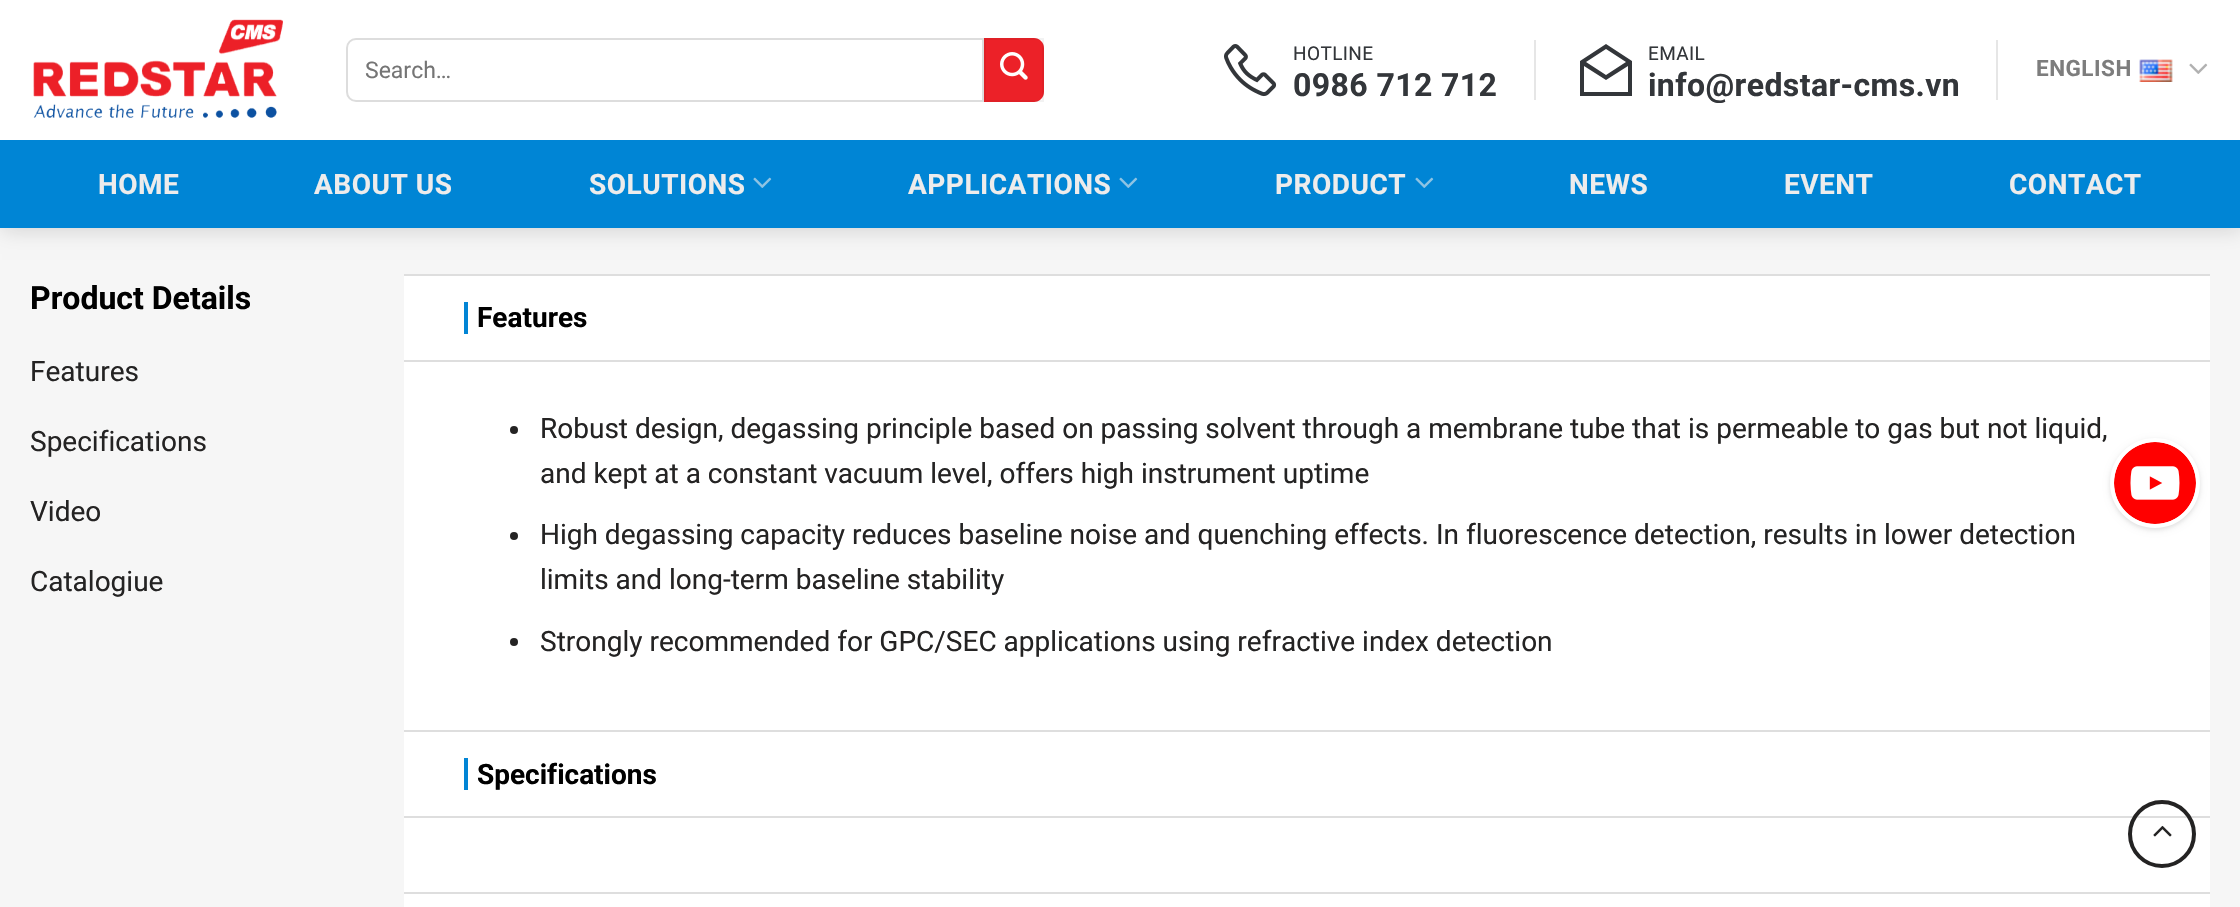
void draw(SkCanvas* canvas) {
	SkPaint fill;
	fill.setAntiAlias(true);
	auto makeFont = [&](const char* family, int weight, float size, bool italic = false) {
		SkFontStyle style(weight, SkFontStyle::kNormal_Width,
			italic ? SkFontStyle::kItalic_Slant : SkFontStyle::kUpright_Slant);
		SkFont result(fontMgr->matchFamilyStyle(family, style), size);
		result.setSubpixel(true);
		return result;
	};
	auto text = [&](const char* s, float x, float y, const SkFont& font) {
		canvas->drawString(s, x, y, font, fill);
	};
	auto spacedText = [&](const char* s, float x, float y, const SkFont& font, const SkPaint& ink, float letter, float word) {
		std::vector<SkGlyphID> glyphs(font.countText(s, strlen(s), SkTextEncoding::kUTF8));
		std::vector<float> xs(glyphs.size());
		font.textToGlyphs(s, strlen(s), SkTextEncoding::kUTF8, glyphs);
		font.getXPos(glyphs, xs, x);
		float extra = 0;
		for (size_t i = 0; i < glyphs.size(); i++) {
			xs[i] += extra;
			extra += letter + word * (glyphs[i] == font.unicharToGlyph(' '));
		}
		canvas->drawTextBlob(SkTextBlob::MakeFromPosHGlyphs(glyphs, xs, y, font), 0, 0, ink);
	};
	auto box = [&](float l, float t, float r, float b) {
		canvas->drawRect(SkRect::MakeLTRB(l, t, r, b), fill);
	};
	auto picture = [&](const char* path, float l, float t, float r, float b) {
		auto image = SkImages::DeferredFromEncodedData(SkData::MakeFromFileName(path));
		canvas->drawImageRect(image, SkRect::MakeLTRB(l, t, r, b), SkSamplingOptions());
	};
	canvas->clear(0xFFF6F6F6);
	fill.setColor(0x26000000);
	fill.setMaskFilter(SkMaskFilter::MakeBlur(kNormal_SkBlurStyle, 10));
	canvas->drawRect(SkRect::MakeLTRB(2, 2, 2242, 230), fill);
	fill.setMaskFilter(nullptr);
	fill.setColor(0xFFFFFFFF);
	box(0, 0, 2240, 140);
	picture("image0.png", 33, 19, 283, 118);
	fill.setStyle(SkPaint::kStroke_Style);
	fill.setStrokeWidth(2);
	fill.setColor(0xFFDDDDDD);
	canvas->drawPath(SkPathBuilder().moveTo(356, 39).lineTo(983, 39).lineTo(983, 101).lineTo(356, 101).cubicTo(351, 101, 347, 97, 347, 92).lineTo(347, 48).cubicTo(347, 43, 351, 39, 356, 39).close().detach(), fill);
	fill.setStyle(SkPaint::kFill_Style);
	fill.setColor(0xFFEC2128);
	canvas->drawPath(SkPathBuilder().moveTo(984, 38).lineTo(1034, 38).cubicTo(1039.5f, 38, 1044, 42.5f, 1044, 48).lineTo(1044, 92).cubicTo(1044, 97.5f, 1039.5f, 102, 1034, 102).lineTo(984, 102).close().detach(), fill);
	fill.setStyle(SkPaint::kStroke_Style);
	fill.setColor(0x0D000000);
	canvas->drawRect(SkRect::MakeLTRB(985, 39, 1043, 101), fill);
	picture("image1.png", 1000, 52, 1028, 80);
	picture("image2.png", 1224, 44, 1277, 97);
	fill.setStyle(SkPaint::kFill_Style);
	fill.setColor(0xFFE6E6E6);
	box(1534, 40, 1536, 100);
	fill.setColor(0xFF33363A);
	canvas->drawPath(SkPathBuilder().moveTo(1606, 44).lineTo(1580, 61).lineTo(1580, 96).lineTo(1632, 96).lineTo(1632, 61).close().moveTo(1606, 49).lineTo(1626, 62).lineTo(1606, 75).lineTo(1586, 62).close().moveTo(1584, 66).lineTo(1606, 80).lineTo(1628, 66).lineTo(1628, 92).lineTo(1584, 92).close().detach(), fill);
	fill.setColor(0xFFE6E6E6);
	box(1996, 40, 1998, 100);
	picture("image3.png", 2139, 59, 2173, 82);
	picture("image4.png", 2189, 63, 2208, 74);
	fill.setColor(0xFF0085D5);
	box(0, 140, 2240, 228);
	picture("image5.png", 753, 177, 772, 188);
	picture("image5.png", 1119, 177, 1138, 188);
	picture("image5.png", 1415, 177, 1434, 188);
	fill.setColor(0xFFFFFFFF);
	box(404, 276, 2210, 907);
	fill.setColor(0xFFDEDEDE);
	box(404, 274, 2210, 276);
	box(404, 360, 2210, 362);
	fill.setColor(0xFF0285D5);
	box(464, 302, 468, 334);
	fill.setColor(0xFF242323);
	canvas->drawCircle(514, 430, 4, fill);
	canvas->drawCircle(514, 536, 4, fill);
	canvas->drawCircle(514, 642, 4, fill);
	fill.setColor(0xFFDEDEDE);
	box(404, 730, 2210, 732);
	box(404, 816, 2210, 818);
	fill.setColor(0xFF0285D5);
	box(464, 758, 468, 790);
	fill.setColor(0xFFDEDEDE);
	box(404, 892, 2210, 894);
	fill.setStyle(SkPaint::kStroke_Style);
	fill.setStrokeWidth(4);
	fill.setColor(0xFF242323);
	canvas->drawCircle(2162, 834, 32, fill);
	picture("image6.png", 2153, 825, 2172, 837);
	fill.setStyle(SkPaint::kFill_Style);
	fill.setColor(0x0D000000);
	fill.setMaskFilter(SkMaskFilter::MakeBlur(kNormal_SkBlurStyle, 3));
	canvas->drawRoundRect(SkRect::MakeLTRB(2110, 440, 2200, 530), 45, 45, fill);
	fill.setMaskFilter(nullptr);
	fill.setColor(0x14000000);
	fill.setMaskFilter(SkMaskFilter::MakeBlur(kNormal_SkBlurStyle, 2));
	canvas->drawRoundRect(SkRect::MakeLTRB(2110, 440, 2200, 530), 45, 45, fill);
	fill.setMaskFilter(nullptr);
	fill.setColor(0xFFFFFFFF);
	canvas->drawCircle(2155, 483, 43, fill);
	fill.setStyle(SkPaint::kStroke_Style);
	canvas->drawCircle(2155, 483, 43, fill);
	picture("image7.png", 2114, 442, 2196, 524);
	auto font1 = makeFont("Roboto", 400, 23);
	fill.setStyle(SkPaint::kFill_Style);
	fill.setColor(0xFF757575);
	text("Search…", 365, 78, font1);
	auto font2 = makeFont("Roboto", 400, 19);
	fill.setColor(0xFF33363A);
	spacedText("HOTLINE", 1293, 60, font2, fill, 0.4f, 0);
	auto font3 = makeFont("Roboto", 700, 32);
	spacedText("0986 712 712", 1293, 96, font3, fill, 0.4f, 0);
	spacedText("EMAIL", 1648, 60, font2, fill, 0.4f, 0);
	spacedText("info@redstar-cms.vn", 1648, 96, font3, fill, 0.4f, 0);
	auto font4 = makeFont("Roboto", 700, 22.5f);
	fill.setColor(0xFF7D7D7D);
	spacedText("ENGLISH", 2036, 76, font4, fill, 0.5f, 0);
	auto font5 = makeFont("Roboto", 700, 28);
	fill.setColor(0xFFEDECEC);
	spacedText("HOME", 98, 194, font5, fill, 0.5f, 0);
	spacedText("ABOUT US", 314, 194, font5, fill, 0.5f, 0);
	spacedText("SOLUTIONS", 589, 194, font5, fill, 0.5f, 0);
	spacedText("APPLICATIONS", 908, 194, font5, fill, 0.5f, 0);
	spacedText("PRODUCT", 1275, 194, font5, fill, 0.5f, 0);
	spacedText("NEWS", 1569, 194, font5, fill, 0.5f, 0);
	spacedText("EVENT", 1784, 194, font5, fill, 0.5f, 0);
	spacedText("CONTACT", 2009, 194, font5, fill, 0.5f, 0);
	fill.setColor(0xFF000000);
	text("Product Details", 30, 309, font3);
	auto font6 = makeFont("Roboto", 400, 28);
	fill.setColor(0xFF242323);
	text("Features", 30, 381, font6);
	text("Specifications", 30, 451, font6);
	text("Video", 30, 521, font6);
	text("Catalogiue", 30, 591, font6);
	fill.setColor(0xFF000000);
	text("Features", 477, 327, font5);
	fill.setColor(0xFF242323);
	text("Robust design, degassing principle based on passing solvent through a membrane tube that is permeable to gas but not liquid,", 540, 438, font6);
	text("and kept at a constant vacuum level, offers high instrument uptime", 540, 483, font6);
	text("High degassing capacity reduces baseline noise and quenching effects. In fluorescence detection, results in lower detection", 540, 544, font6);
	text("limits and long-term baseline stability", 540, 589, font6);
	text("Strongly recommended for GPC/SEC applications using refractive index detection", 540, 651, font6);
	fill.setColor(0xFF000000);
	text("Specifications", 477, 784, font5);
}
